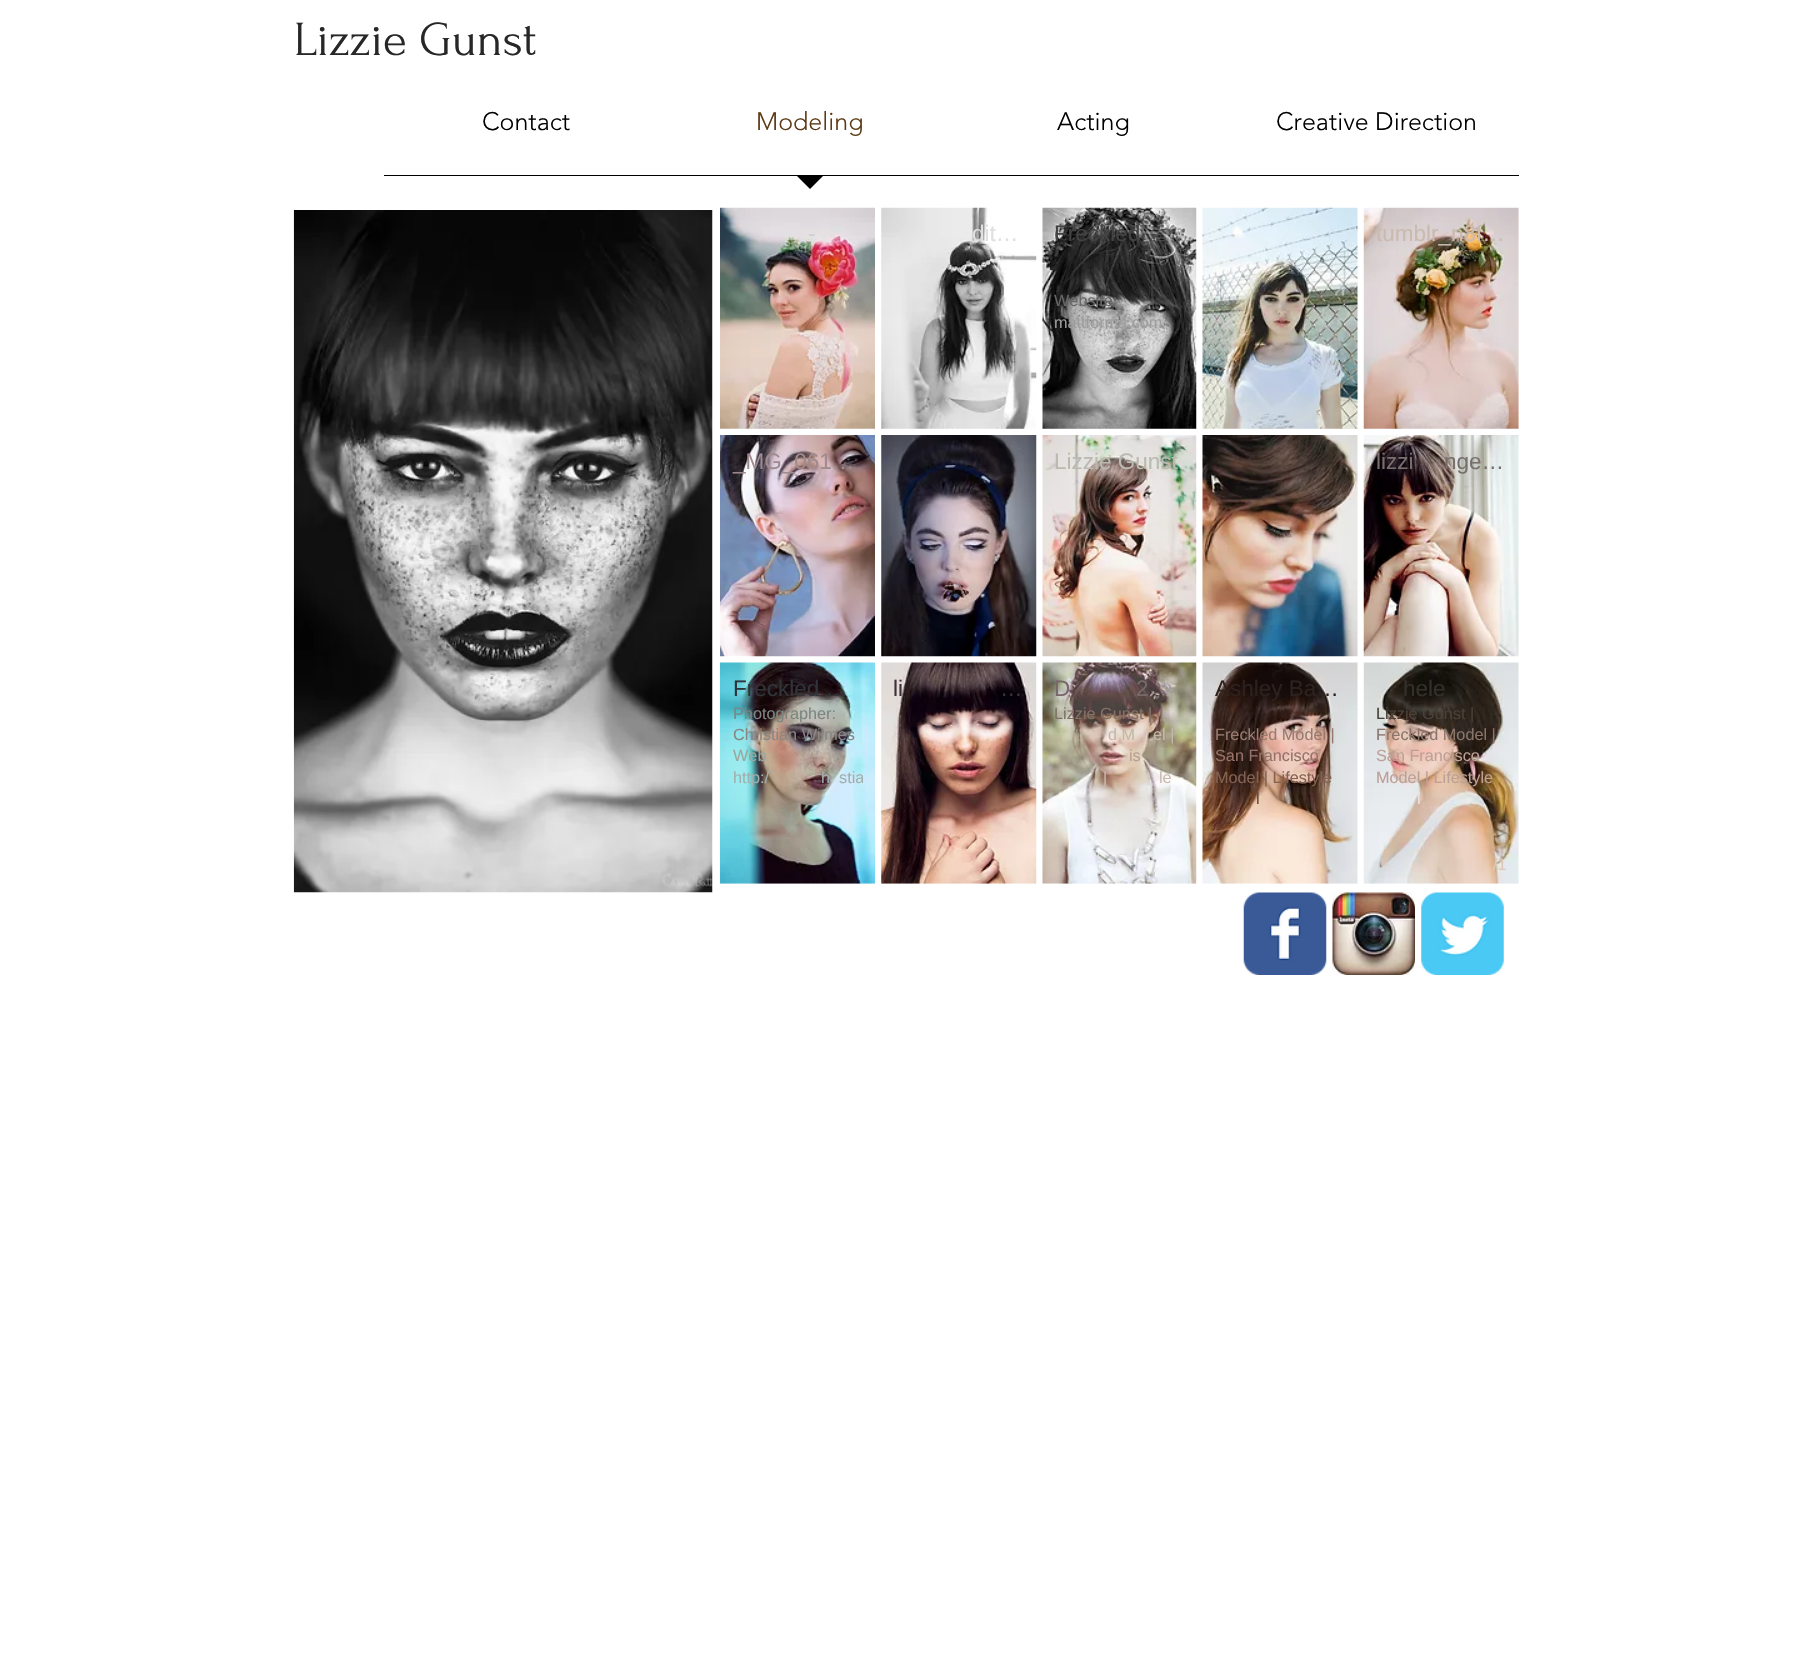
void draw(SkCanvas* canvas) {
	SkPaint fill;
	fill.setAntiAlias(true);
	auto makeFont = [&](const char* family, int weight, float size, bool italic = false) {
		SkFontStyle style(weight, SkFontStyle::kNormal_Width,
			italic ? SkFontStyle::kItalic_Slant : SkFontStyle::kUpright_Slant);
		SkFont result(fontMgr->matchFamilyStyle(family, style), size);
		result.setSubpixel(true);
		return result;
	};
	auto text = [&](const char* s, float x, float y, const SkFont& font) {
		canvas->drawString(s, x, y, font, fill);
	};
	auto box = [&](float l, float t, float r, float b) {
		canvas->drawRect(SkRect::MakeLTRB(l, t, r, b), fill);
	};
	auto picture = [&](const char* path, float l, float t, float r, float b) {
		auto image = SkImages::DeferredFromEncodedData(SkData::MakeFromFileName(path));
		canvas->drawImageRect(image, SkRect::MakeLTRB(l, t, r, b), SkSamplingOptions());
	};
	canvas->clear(0xFFFFFFFF);
	fill.setColor(0xFF000000);
	box(384, 175, 1519, 176);
	canvas->drawPath(SkPathBuilder().moveTo(796, 175).lineTo(824, 175).lineTo(810, 189).close().detach(), fill);
	picture("image0.png", 293, 210, 713, 893);
	picture("image1.png", 720, 207, 875, 429);
	picture("image2.png", 881, 207, 1037, 429);
	picture("image3.png", 1042, 207, 1197, 429);
	picture("image4.png", 1202, 207, 1358, 429);
	picture("image5.png", 1363, 207, 1519, 429);
	picture("image6.png", 720, 435, 875, 657);
	picture("image7.png", 881, 435, 1037, 657);
	picture("image8.png", 1042, 435, 1197, 657);
	picture("image9.png", 1202, 435, 1358, 657);
	picture("image10.png", 1363, 435, 1519, 657);
	picture("image11.png", 720, 662, 875, 884);
	picture("image12.png", 881, 662, 1037, 884);
	picture("image13.png", 1042, 662, 1197, 884);
	picture("image14.png", 1202, 662, 1358, 884);
	picture("image15.png", 1363, 662, 1519, 884);
	picture("image16.png", 1243, 892, 1327, 975);
	picture("image17.png", 1332, 892, 1415, 975);
	picture("image18.png", 1421, 892, 1504, 975);
	auto font1 = makeFont("Forum", 400, 48.75f);
	fill.setColor(0xFF272727);
	text("Lizzie Gunst", 294, 55, font1);
	auto font2 = makeFont("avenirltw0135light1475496", 300, 25);
	fill.setColor(0xFF000000);
	text("Contact", 482, 130, font2);
	fill.setColor(0xFF5E3C17);
	text("Modeling", 756, 130, font2);
	fill.setColor(0xFF000000);
	text("Acting", 1057, 130, font2);
	text("Creative Direction", 1276, 130, font2);
	auto font3 = makeFont("Liberation Sans", 400, 22.5f);
	fill.setColor(0xFFD2CFD3);
	text("-", 808, 241, font3);
	fill.setColor(0xFFE0E0E0);
	text("dit…", 972, 241, font3);
	fill.setColor(0xFF434343);
	text("Freckled …", 1054, 241, font3);
	auto font4 = makeFont("Liberation Sans", 400, 16.25f);
	fill.setColor(0xFF676767);
	text("Website:", 1054, 306, font4);
	fill.setColor(0xFF9D9D9D);
	text("mattforma.com", 1054, 328, font4);
	fill.setColor(0xFFCABAAF);
	text("tumblr_n8f…", 1376, 241, font3);
	fill.setColor(0xFF9E8A8F);
	text("_MG_061…", 733, 469, font3);
	fill.setColor(0xFFBABAB1);
	text("Lizzie Gunst", 1054, 469, font3);
	fill.setColor(0xFF776F6E);
	text("lizzi", 1376, 469, font3);
	text("nge…", 1444, 469, font3);
	fill.setColor(0xFF2E3439);
	text("Freckled …", 733, 696, font3);
	fill.setColor(0xFF7B8683);
	text("Photographer:", 733, 719, font4);
	fill.setColor(0xFF878785);
	text("Christian Wilmes", 733, 740, font4);
	fill.setColor(0xFF9AA69E);
	text("Web", 733, 761, font4);
	fill.setColor(0xFFA0B0AE);
	text("http:/", 733, 783, font4);
	text("h", 821, 783, font4);
	canvas->save();
	canvas->clipRect(SkRect::MakeLTRB(733, 704, 863, 789));
	text("stia", 839, 783, font4);
	canvas->restore();
	fill.setColor(0xFF3E3037);
	text("li", 893, 696, font3);
	text("…", 1000, 696, font3);
	fill.setColor(0xFF78686A);
	text("D", 1054, 696, font3);
	text("2", 1136, 696, font3);
	fill.setColor(0xFF827166);
	text("Lizzie Gunst |", 1054, 719, font4);
	fill.setColor(0xFFC5B8A6);
	text("d M", 1108, 740, font4);
	text("el |", 1153, 740, font4);
	fill.setColor(0xFFB6A090);
	text("is", 1129, 761, font4);
	fill.setColor(0xFFCABAAF);
	text("|", 1103, 783, font4);
	text("le", 1159, 783, font4);
	fill.setColor(0xFF2D211E);
	text("Ashley Ba…", 1215, 696, font3);
	fill.setColor(0xFF997A70);
	text("Freckled Model |", 1215, 740, font4);
	fill.setColor(0xFF947268);
	text("San Francisco", 1215, 761, font4);
	fill.setColor(0xFF826253);
	text("Model | Lifestyle", 1215, 783, font4);
	fill.setColor(0xFF6B4634);
	text("l", 1256, 804, font4);
	fill.setColor(0xFF332F2A);
	text("hele", 1403, 696, font3);
	fill.setColor(0xFF494138);
	text("Lizzie Gunst |", 1376, 719, font4);
	fill.setColor(0xFF8A756B);
	text("Freckled Model |", 1376, 740, font4);
	fill.setColor(0xFFBDA096);
	text("San Francisco", 1376, 761, font4);
	text("Model | Lifestyle", 1376, 783, font4);
	fill.setColor(0xFFE5E6E7);
	text("l", 1417, 804, font4);
	fill.setColor(0xFFDEC9B6);
	text("/1", 1493, 870, font4);
}
